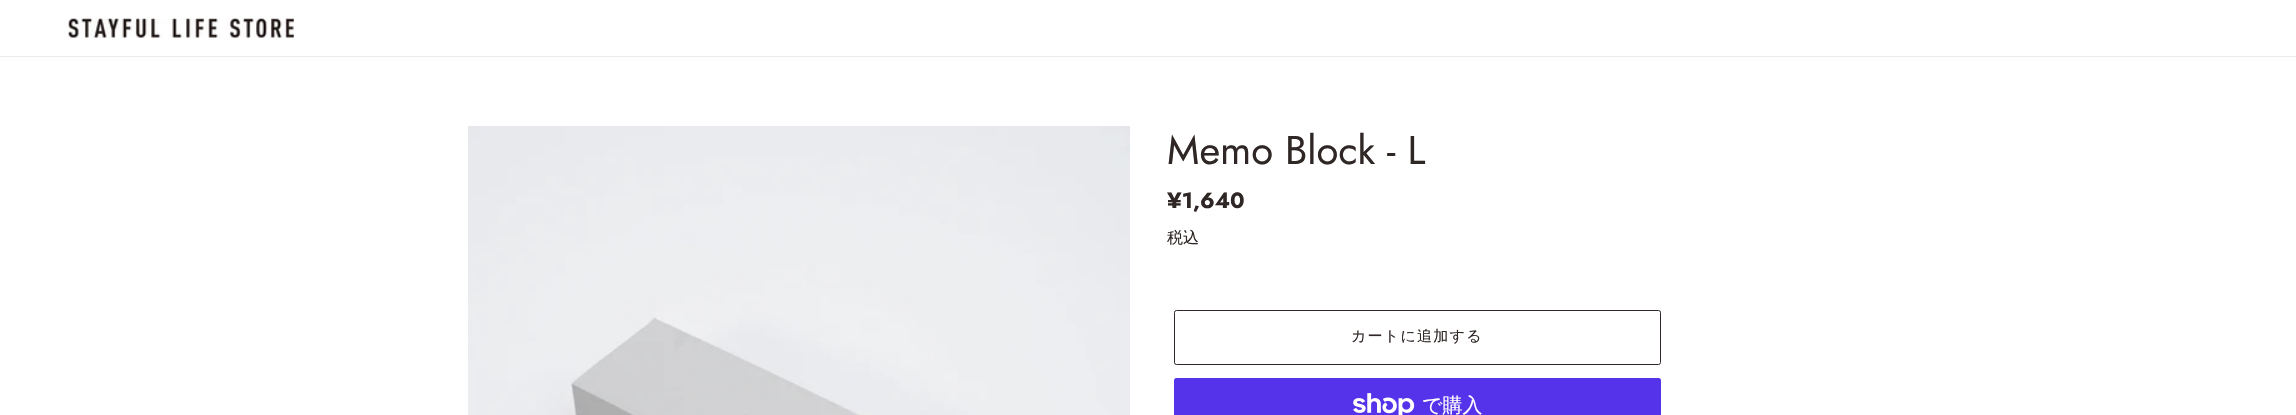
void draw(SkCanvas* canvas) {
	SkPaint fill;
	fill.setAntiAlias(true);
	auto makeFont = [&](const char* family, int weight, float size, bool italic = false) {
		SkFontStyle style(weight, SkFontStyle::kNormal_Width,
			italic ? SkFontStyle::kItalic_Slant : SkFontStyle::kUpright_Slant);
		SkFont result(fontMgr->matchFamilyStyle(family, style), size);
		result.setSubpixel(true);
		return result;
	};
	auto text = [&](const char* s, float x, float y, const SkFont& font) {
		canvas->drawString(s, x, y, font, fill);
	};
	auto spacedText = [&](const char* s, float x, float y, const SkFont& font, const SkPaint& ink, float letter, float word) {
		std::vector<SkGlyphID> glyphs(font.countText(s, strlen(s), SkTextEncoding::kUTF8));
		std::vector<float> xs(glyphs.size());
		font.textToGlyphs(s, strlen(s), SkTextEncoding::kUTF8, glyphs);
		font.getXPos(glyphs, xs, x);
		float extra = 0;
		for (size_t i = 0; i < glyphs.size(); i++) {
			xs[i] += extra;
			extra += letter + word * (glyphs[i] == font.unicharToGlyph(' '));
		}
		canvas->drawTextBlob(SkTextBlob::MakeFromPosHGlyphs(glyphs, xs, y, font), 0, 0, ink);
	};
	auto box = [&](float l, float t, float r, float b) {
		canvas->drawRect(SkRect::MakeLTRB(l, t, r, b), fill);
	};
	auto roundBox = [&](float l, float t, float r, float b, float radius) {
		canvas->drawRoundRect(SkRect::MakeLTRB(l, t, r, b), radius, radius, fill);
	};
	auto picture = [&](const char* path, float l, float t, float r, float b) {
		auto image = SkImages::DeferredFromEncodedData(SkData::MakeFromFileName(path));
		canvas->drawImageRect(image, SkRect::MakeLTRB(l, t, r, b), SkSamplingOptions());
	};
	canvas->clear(0xFFFFFFFF);
	fill.setColor(0xFFEBEBEB);
	box(0, 56, 2296, 57);
	picture("image0.png", 68, 18, 294, 38);
	picture("image1.png", 468, 126, 1130, 415);
	fill.setStyle(SkPaint::kStroke_Style);
	fill.setStrokeWidth(1);
	fill.setColor(0xFF2F2725);
	canvas->drawRoundRect(SkRect::MakeLTRB(1174.5f, 310.5f, 1660.5f, 364.5f), 2, 2, fill);
	fill.setStyle(SkPaint::kFill_Style);
	fill.setColor(0xFF5433EB);
	roundBox(1174, 378, 1661, 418, 2.5f);
	picture("image2.png", 1353, 393, 1415, 415);
	auto font1 = makeFont("Jost", 400, 40);
	fill.setColor(0xFF2F2725);
	text("Memo Block - L", 1167, 164, font1);
	auto font2 = makeFont("Jost", 700, 22);
	text("¥1,640", 1167, 208, font2);
	auto font3 = makeFont("WenQuanYi Zen Hei", 500, 16);
	text("税込", 1167, 243, font3);
	auto font4 = makeFont("WenQuanYi Zen Hei", 500, 15);
	spacedText("カートに追加する", 1351, 341, font4, fill, 1.25f, 0);
	auto font5 = makeFont("WenQuanYi Zen Hei", 500, 20);
	fill.setColor(0xFFFFFFFF);
	text("で購入", 1422, 412, font5);
}
